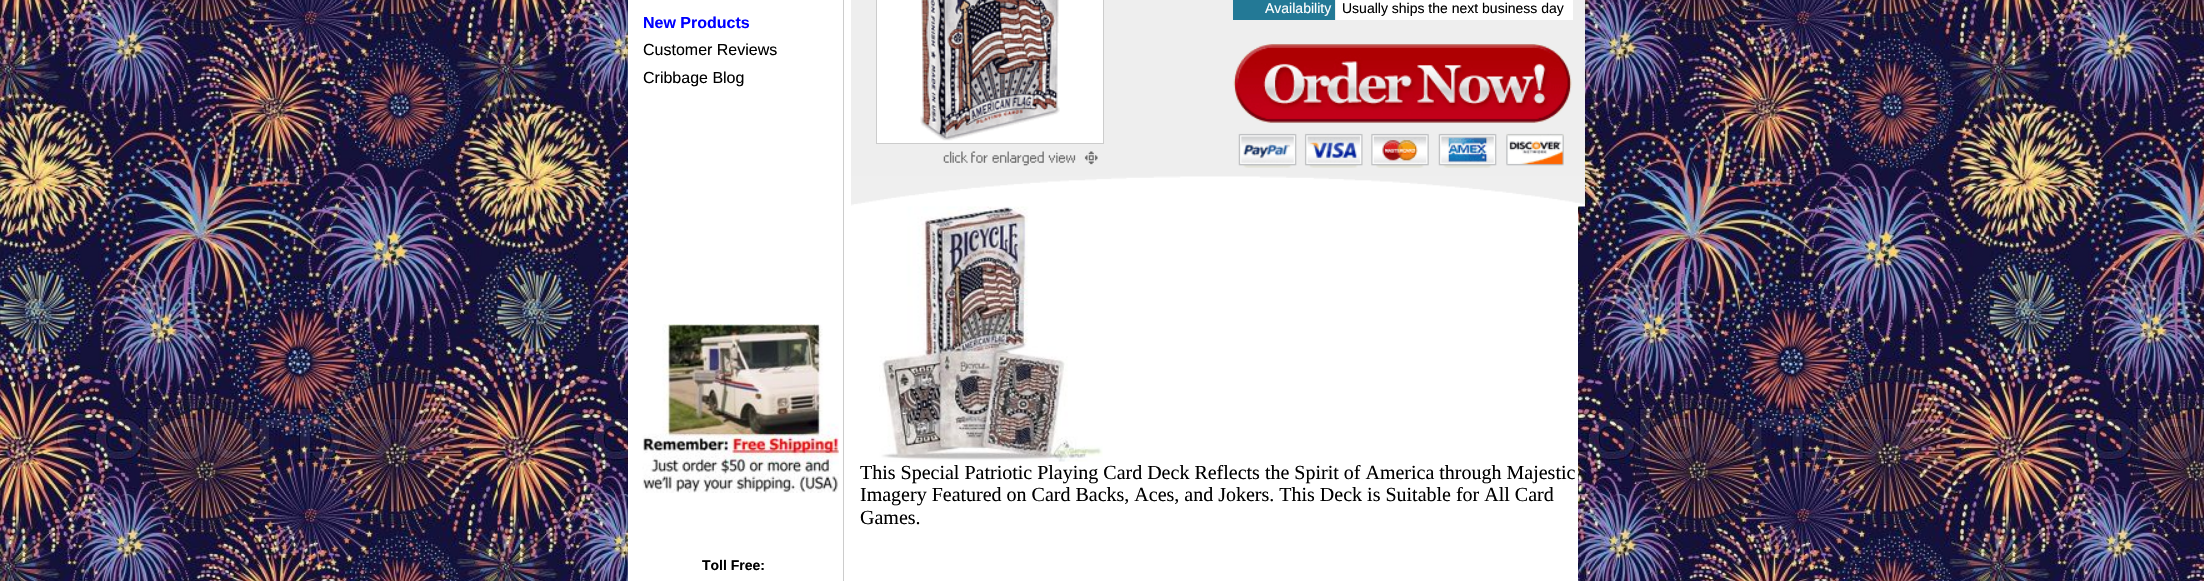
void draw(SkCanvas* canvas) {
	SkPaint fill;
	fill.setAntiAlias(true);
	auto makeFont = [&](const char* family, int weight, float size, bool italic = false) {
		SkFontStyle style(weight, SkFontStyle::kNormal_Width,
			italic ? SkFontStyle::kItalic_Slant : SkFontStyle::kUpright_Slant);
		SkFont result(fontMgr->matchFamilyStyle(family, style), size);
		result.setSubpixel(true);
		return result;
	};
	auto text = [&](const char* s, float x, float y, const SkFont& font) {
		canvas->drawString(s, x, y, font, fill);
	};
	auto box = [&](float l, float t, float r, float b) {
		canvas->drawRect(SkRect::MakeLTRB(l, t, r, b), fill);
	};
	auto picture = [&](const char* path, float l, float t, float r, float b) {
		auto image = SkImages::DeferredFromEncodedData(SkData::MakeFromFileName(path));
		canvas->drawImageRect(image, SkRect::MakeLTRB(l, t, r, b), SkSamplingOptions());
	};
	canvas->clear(0xFFFFFFFF);
	picture("image0.png", 0, 0, 2204, 581);
	fill.setColor(0xFFFFFFFF);
	box(628, 0, 1578, 581);
	fill.setColor(0xFFCCCCCC);
	box(843, 0, 844, 581);
	picture("image1.png", 642, 324, 839, 493);
	fill.setColor(0xFFEEEEEE);
	box(851, 0, 1585, 206);
	picture("image2.png", 851, 176, 1585, 207);
	picture("image3.png", 943, 151, 1098, 166);
	fill.setColor(0xFFFFFFFF);
	canvas->drawRect(SkRect::MakeLTRB(876.5f, -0.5f, 1103.5f, 143.5f), fill);
	fill.setStyle(SkPaint::kStroke_Style);
	fill.setStrokeWidth(1);
	fill.setColor(0xFFCCCCCC);
	canvas->drawRect(SkRect::MakeLTRB(876.5f, -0.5f, 1103.5f, 143.5f), fill);
	picture("image4.png", 920, 0, 1060, 141);
	fill.setStyle(SkPaint::kFill_Style);
	fill.setColor(0xFF237996);
	box(1233, 0, 1335, 20);
	fill.setColor(0xFFFFFFFF);
	box(1336, 0, 1573, 20);
	picture("image5.png", 1233, 44, 1572, 168);
	picture("image6.png", 879, 206, 1103, 462);
	auto font1 = makeFont("Liberation Sans", 700, 16);
	fill.setColor(0xFF0000FF);
	text("New Products", 643, 28, font1);
	auto font2 = makeFont("Liberation Sans", 400, 16);
	fill.setColor(0xFF000000);
	text("Customer Reviews", 643, 55, font2);
	text("Cribbage Blog", 643, 83, font2);
	auto font3 = makeFont("Liberation Sans", 700, 14);
	text("Toll Free:", 702, 570, font3);
	auto font4 = makeFont("Liberation Sans", 400, 14);
	fill.setColor(0xFFFFFFFF);
	text("Availability", 1265, 13, font4);
	fill.setColor(0xFF000000);
	text("Usually ships the next business day", 1342, 13, font4);
	auto font5 = makeFont("Liberation Serif", 400, 20);
	text("This Special Patriotic Playing Card Deck Reflects the Spirit of America through Majestic", 860, 479, font5);
	text("Imagery Featured on Card Backs, Aces, and Jokers. This Deck is Suitable for All Card", 860, 501, font5);
	text("Games.", 860, 524, font5);
}
